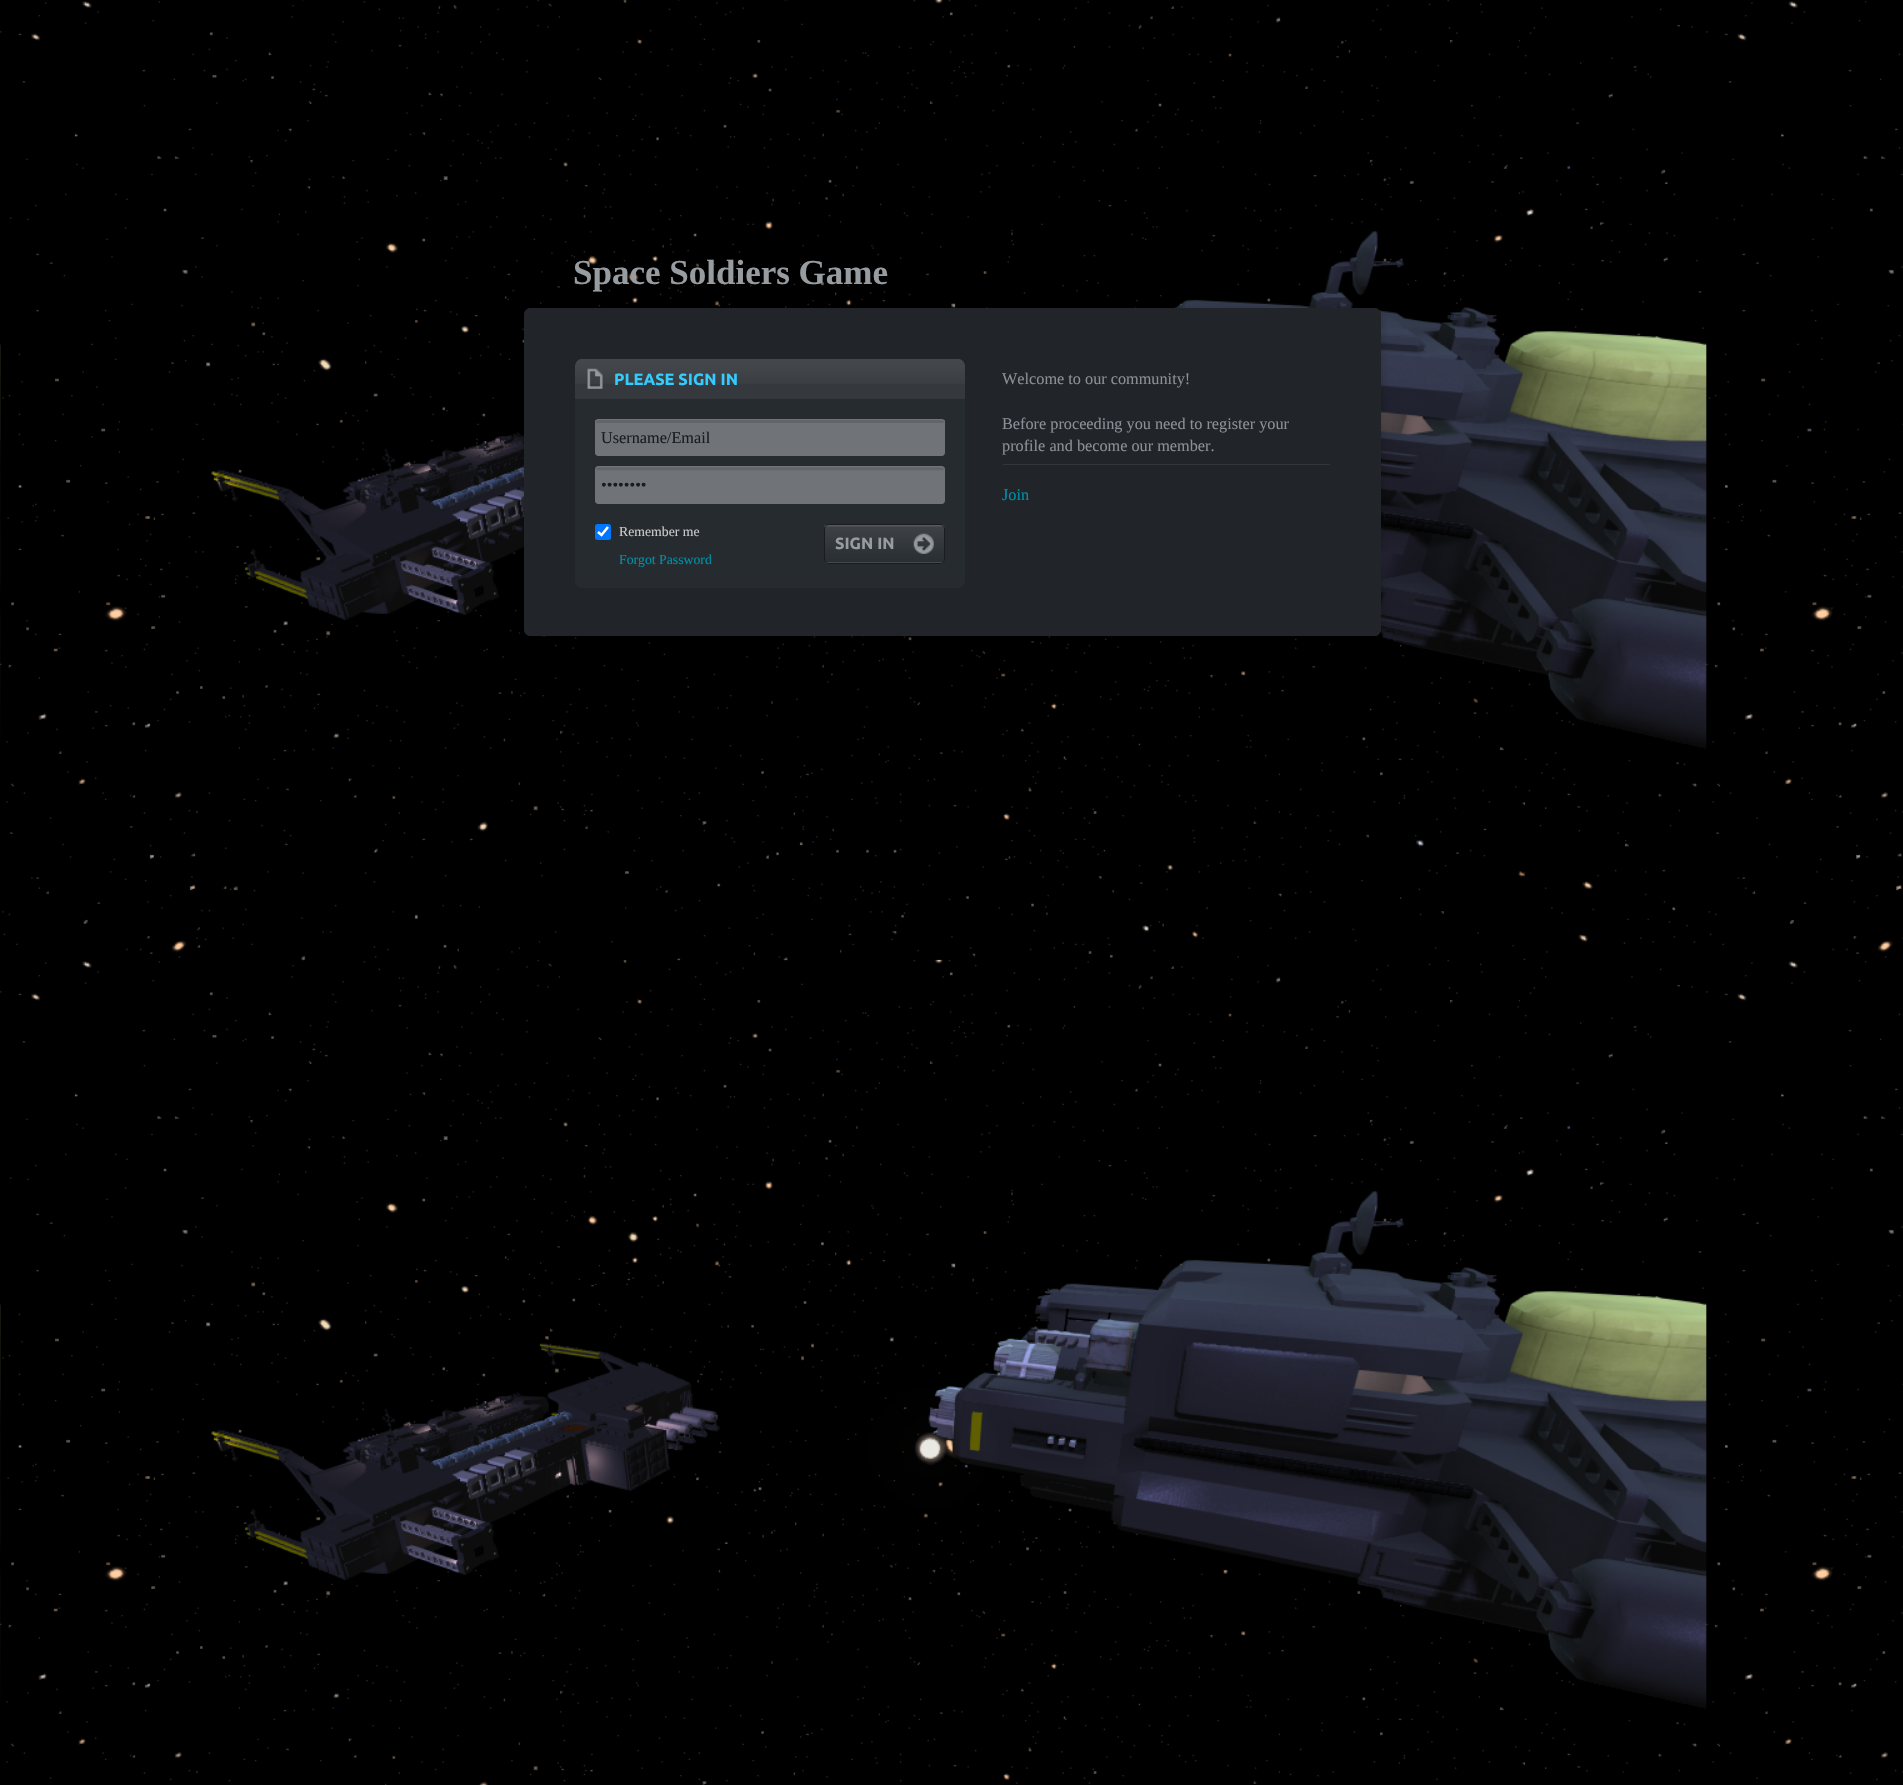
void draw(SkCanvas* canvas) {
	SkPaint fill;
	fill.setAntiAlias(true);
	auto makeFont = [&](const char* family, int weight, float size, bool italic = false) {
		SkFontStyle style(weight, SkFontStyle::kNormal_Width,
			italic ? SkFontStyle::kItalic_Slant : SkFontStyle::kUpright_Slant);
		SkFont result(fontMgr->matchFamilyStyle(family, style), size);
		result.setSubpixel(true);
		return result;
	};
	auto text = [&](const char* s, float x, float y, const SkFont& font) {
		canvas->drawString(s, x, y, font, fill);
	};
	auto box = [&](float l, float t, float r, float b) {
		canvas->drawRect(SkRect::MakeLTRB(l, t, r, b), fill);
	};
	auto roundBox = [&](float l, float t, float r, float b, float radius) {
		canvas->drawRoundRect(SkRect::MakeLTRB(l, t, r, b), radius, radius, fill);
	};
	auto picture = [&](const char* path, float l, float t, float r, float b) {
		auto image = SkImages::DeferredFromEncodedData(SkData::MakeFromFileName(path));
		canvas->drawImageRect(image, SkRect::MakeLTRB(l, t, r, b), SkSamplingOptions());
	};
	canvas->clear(0xFFFFFFFF);
	picture("image0.png", 0, 0, 1903, 1785);
	fill.setColor(0x33000000);
	fill.setMaskFilter(SkMaskFilter::MakeBlur(kNormal_SkBlurStyle, 4));
	canvas->drawRoundRect(SkRect::MakeLTRB(524, 310, 1381, 639), 6, 6, fill);
	fill.setMaskFilter(nullptr);
	fill.setColor(0xFF212428);
	canvas->drawRoundRect(SkRect::MakeLTRB(524.5f, 308.5f, 1380.5f, 635.5f), 5.5f, 5.5f, fill);
	fill.setStyle(SkPaint::kStroke_Style);
	fill.setStrokeWidth(1);
	canvas->drawRoundRect(SkRect::MakeLTRB(524.5f, 308.5f, 1380.5f, 635.5f), 5.5f, 5.5f, fill);
	fill.setStyle(SkPaint::kFill_Style);
	fill.setColor(0xFF35393D);
	canvas->drawPath(SkPathBuilder().moveTo(583, 359).lineTo(957, 359).cubicTo(961.5f, 359, 965, 362.5f, 965, 367).lineTo(965, 399).lineTo(575, 399).lineTo(575, 367).cubicTo(575, 362.5f, 578.5f, 359, 583, 359).close().detach(), fill);
	picture("image1.png", 575, 359, 965, 384);
	picture("image2.png", 587, 368, 603, 389);
	fill.setColor(0xFF262B2F);
	canvas->drawPath(SkPathBuilder().moveTo(575, 399).lineTo(965, 399).lineTo(965, 580).cubicTo(965, 584.5f, 961.5f, 588, 957, 588).lineTo(583, 588).cubicTo(578.5f, 588, 575, 584.5f, 575, 580).close().detach(), fill);
	fill.setColor(0xFF707478);
	roundBox(595, 419, 945, 456, 4);
	fill.setColor(0xFF62666A);
	box(595, 420, 945, 423);
	fill.setStyle(SkPaint::kStroke_Style);
	fill.setColor(0xFF707478);
	canvas->drawRoundRect(SkRect::MakeLTRB(595.5f, 419.5f, 944.5f, 455.5f), 3.5f, 3.5f, fill);
	fill.setStyle(SkPaint::kFill_Style);
	roundBox(595, 466, 945, 504, 4);
	picture("image3.png", 595, 467, 945, 471);
	fill.setStyle(SkPaint::kStroke_Style);
	canvas->drawRoundRect(SkRect::MakeLTRB(595.5f, 466.5f, 944.5f, 503.5f), 3.5f, 3.5f, fill);
	fill.setStyle(SkPaint::kFill_Style);
	fill.setColor(0xFF0075FF);
	roundBox(595, 524, 611, 540, 2.5f);
	fill.setStyle(SkPaint::kStroke_Style);
	fill.setStrokeWidth(2.6f);
	fill.setColor(0xFFFFFFFF);
	canvas->drawPath(SkPathBuilder().moveTo(598, 532).lineTo(601.5f, 535).lineTo(608, 527).detach(), fill);
	picture("image4.png", 824, 524, 945, 564);
	fill.setStrokeWidth(1);
	fill.setColor(0xFF1A1C1F);
	canvas->drawRoundRect(SkRect::MakeLTRB(824.5f, 524.5f, 944.5f, 563.5f), 4.5f, 4.5f, fill);
	picture("image5.png", 913, 533, 934, 554);
	fill.setStyle(SkPaint::kFill_Style);
	fill.setColor(0xFF31363A);
	box(1003, 464, 1330, 465);
	auto font1 = makeFont("Liberation Serif", 700, 35);
	fill.setColor(0xFF979CA0);
	text("Space Soldiers Game", 573, 284, font1);
	auto font2 = makeFont("Ubuntu", 700, 16.25f);
	fill.setColor(0xFF33CCFF);
	text("PLEASE SIGN IN", 614, 385, font2);
	auto font3 = makeFont("Liberation Serif", 400, 16.25f);
	fill.setColor(0xFF171C20);
	text("Username/Email", 601, 443, font3);
	text("••••••••", 601, 490, font3);
	auto font4 = makeFont("Liberation Serif", 400, 13.75f);
	fill.setColor(0xFFCCCCCC);
	text("Remember me", 619, 536, font4);
	fill.setColor(0xFF979CA0);
	text("SIGN IN", 835, 549, font2);
	fill.setColor(0xFF0091A9);
	text("Forgot Password", 619, 564, font4);
	fill.setColor(0xFF8B8F97);
	text("Welcome to our community!", 1002, 384, font3);
	text("Before proceeding you need to register your", 1002, 429, font3);
	text("profile and become our member.", 1002, 451, font3);
	fill.setColor(0xFF0091A9);
	text("Join", 1002, 500, font3);
}
